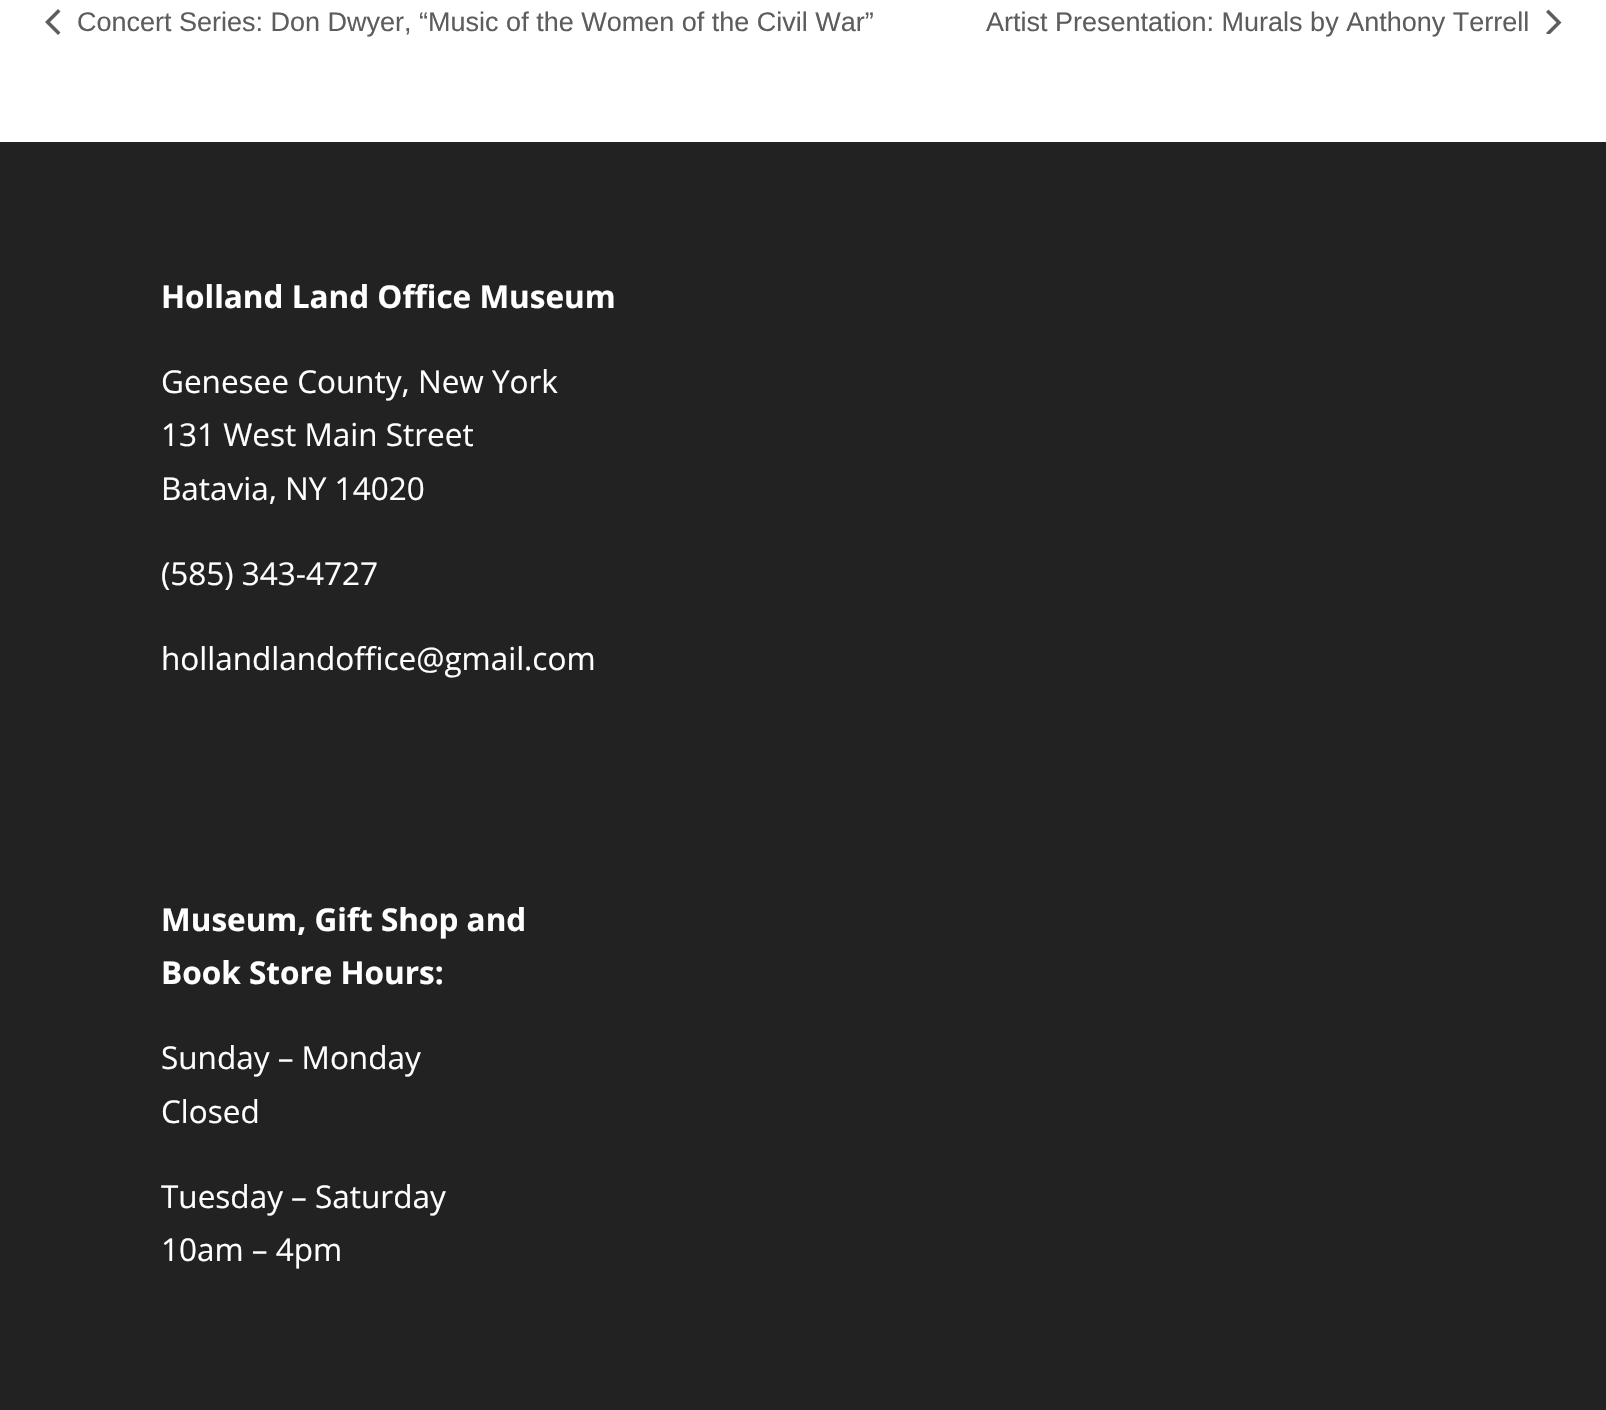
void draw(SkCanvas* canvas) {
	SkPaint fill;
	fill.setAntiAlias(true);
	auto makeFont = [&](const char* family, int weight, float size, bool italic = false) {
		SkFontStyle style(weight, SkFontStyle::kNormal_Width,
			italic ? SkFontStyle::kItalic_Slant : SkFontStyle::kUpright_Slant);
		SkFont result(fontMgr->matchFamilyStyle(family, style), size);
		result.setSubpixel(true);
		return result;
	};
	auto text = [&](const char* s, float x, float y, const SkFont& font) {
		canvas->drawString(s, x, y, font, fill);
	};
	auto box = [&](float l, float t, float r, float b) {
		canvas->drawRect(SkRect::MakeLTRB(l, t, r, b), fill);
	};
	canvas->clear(0xFFFFFFFF);
	fill.setColor(0xFF5D5D5D);
	canvas->drawPath(SkPathBuilder().moveTo(60.5f, 32.5f).lineTo(58, 35).lineTo(45, 22).lineTo(58, 9).lineTo(60.5f, 11.5f).lineTo(50, 22).close().detach(), fill);
	canvas->save();
	canvas->clipRect(SkRect::MakeLTRB(1546, 9, 1562, 34));
	canvas->drawPath(SkPathBuilder().moveTo(1546, 12).lineTo(1548.5f, 9.5f).lineTo(1561.5f, 22.5f).lineTo(1548.5f, 35.5f).lineTo(1546, 33).lineTo(1556.5f, 22.5f).close().detach(), fill);
	canvas->restore();
	fill.setColor(0xFF222222);
	box(0, 142, 1606, 1410);
	auto font1 = makeFont("Liberation Sans", 400, 27);
	fill.setColor(0xFF5D5D5D);
	text("Concert Series: Don Dwyer, “Music of the Women of the Civil War”", 77, 31, font1);
	text("Artist Presentation: Murals by Anthony Terrell", 986, 31, font1);
	auto font2 = makeFont("Open Sans", 700, 31.5f);
	fill.setColor(0xFFFFFFFF);
	text("Holland Land Office Museum", 161, 308, font2);
	auto font3 = makeFont("Open Sans", 400, 31.5f);
	text("Genesee County, New York", 161, 393, font3);
	text("131 West Main Street", 161, 446, font3);
	text("Batavia, NY 14020", 161, 500, font3);
	text("(585) 343-4727", 161, 585, font3);
	text("hollandlandoffice@gmail.com", 161, 670, font3);
	text("Museum, Gift Shop and", 161, 931, font2);
	text("Book Store Hours:", 161, 984, font2);
	text("Sunday – Monday", 161, 1069, font3);
	text("Closed", 161, 1123, font3);
	text("Tuesday – Saturday", 161, 1208, font3);
	text("10am – 4pm", 161, 1261, font3);
}
